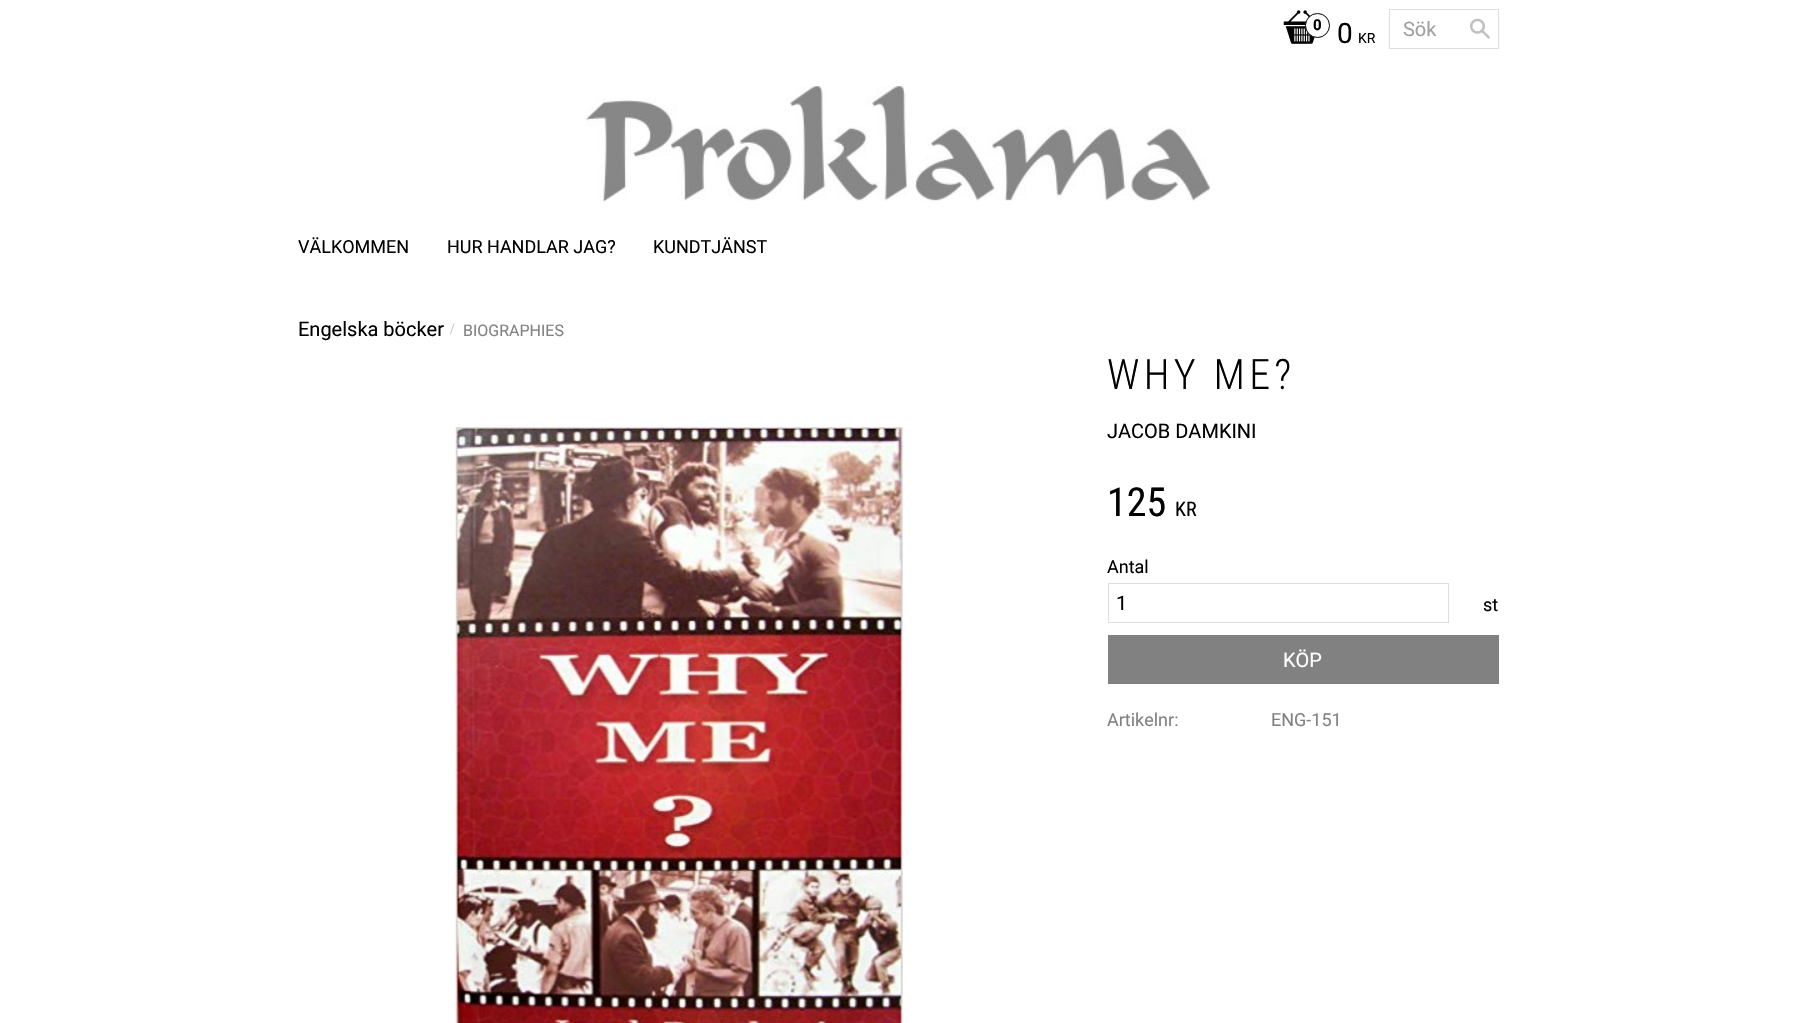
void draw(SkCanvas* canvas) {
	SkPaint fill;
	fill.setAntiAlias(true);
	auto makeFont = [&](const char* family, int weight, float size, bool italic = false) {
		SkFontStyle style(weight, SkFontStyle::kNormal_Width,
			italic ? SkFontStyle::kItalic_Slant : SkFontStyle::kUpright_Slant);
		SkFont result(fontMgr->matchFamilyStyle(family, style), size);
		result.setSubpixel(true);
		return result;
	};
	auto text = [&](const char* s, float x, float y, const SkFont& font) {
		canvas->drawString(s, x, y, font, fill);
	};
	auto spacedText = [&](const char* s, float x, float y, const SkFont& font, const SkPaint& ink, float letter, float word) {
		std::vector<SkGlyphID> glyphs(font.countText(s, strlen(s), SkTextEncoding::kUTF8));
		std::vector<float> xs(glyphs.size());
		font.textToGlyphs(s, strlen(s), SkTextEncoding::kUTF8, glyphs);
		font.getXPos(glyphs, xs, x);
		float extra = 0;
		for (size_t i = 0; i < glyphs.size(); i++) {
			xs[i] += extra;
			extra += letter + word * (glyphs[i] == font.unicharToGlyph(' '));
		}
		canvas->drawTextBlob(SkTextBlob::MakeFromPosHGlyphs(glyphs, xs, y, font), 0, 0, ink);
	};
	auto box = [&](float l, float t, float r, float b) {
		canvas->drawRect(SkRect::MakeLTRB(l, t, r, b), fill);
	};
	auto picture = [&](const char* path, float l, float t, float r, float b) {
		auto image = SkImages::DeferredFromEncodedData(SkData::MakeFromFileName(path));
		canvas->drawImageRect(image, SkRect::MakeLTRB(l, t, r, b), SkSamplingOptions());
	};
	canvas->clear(0xFFFFFFFF);
	picture("image0.png", 1283, 10, 1315, 44);
	fill.setColor(0xFFFFFFFF);
	canvas->drawCircle(1317.5f, 25.5f, 12, fill);
	fill.setStyle(SkPaint::kStroke_Style);
	fill.setStrokeWidth(1);
	fill.setColor(0xFF000000);
	canvas->drawCircle(1317.5f, 25.5f, 12, fill);
	fill.setColor(0xFFDEDEDE);
	canvas->drawRect(SkRect::MakeLTRB(1389.5f, 9.5f, 1498.5f, 48.5f), fill);
	picture("image1.png", 1470, 18, 1490, 39);
	picture("image2.png", 586, 86, 1210, 202);
	picture("image3.png", 455, 427, 903, 1023);
	canvas->drawRect(SkRect::MakeLTRB(1108.5f, 583.5f, 1448.5f, 622.5f), fill);
	fill.setStyle(SkPaint::kFill_Style);
	fill.setColor(0xFF818181);
	box(1108, 635, 1499, 684);
	auto font1 = makeFont("Roboto", 700, 15);
	fill.setColor(0xFF000000);
	text("0", 1313, 30, font1);
	auto font2 = makeFont("Roboto", 400, 28);
	text("0", 1337, 43, font2);
	auto font3 = makeFont("Roboto", 400, 14);
	text("KR", 1358, 43, font3);
	auto font4 = makeFont("Roboto", 400, 20);
	fill.setColor(0xFFA0A0A0);
	text("Sök", 1403, 36, font4);
	auto font5 = makeFont("Roboto", 400, 18);
	fill.setColor(0xFF000000);
	text("VÄLKOMMEN", 298, 253, font5);
	text("HUR HANDLAR JAG?", 447, 253, font5);
	text("KUNDTJÄNST", 653, 253, font5);
	text("Engelska böcker", 298, 336, font4);
	auto font6 = makeFont("Liberation Serif", 400, 16);
	fill.setColor(0xFFC3C3C3);
	text("/", 450, 334, font6);
	auto font7 = makeFont("Roboto", 400, 16);
	fill.setColor(0xFF818181);
	text("BIOGRAPHIES", 463, 336, font7);
	auto font8 = makeFont("Roboto Condensed", 300, 42);
	fill.setColor(0xFF000000);
	spacedText("WHY ME?", 1107, 389, font8, fill, 4.25f, 0);
	text("JACOB DAMKINI", 1107, 438, font4);
	auto font9 = makeFont("Roboto Condensed", 400, 40);
	text("125", 1107, 516, font9);
	auto font10 = makeFont("Roboto Condensed", 400, 20);
	text("KR", 1175, 516, font10);
	text("Antal", 1107, 573, font5);
	text("1", 1116, 610, font4);
	text("st", 1483, 611, font5);
	fill.setColor(0xFFFFFFFF);
	text("KÖP", 1283, 667, font4);
	fill.setColor(0xFF818181);
	text("Artikelnr:", 1107, 726, font5);
	text("ENG-151", 1271, 726, font5);
}
